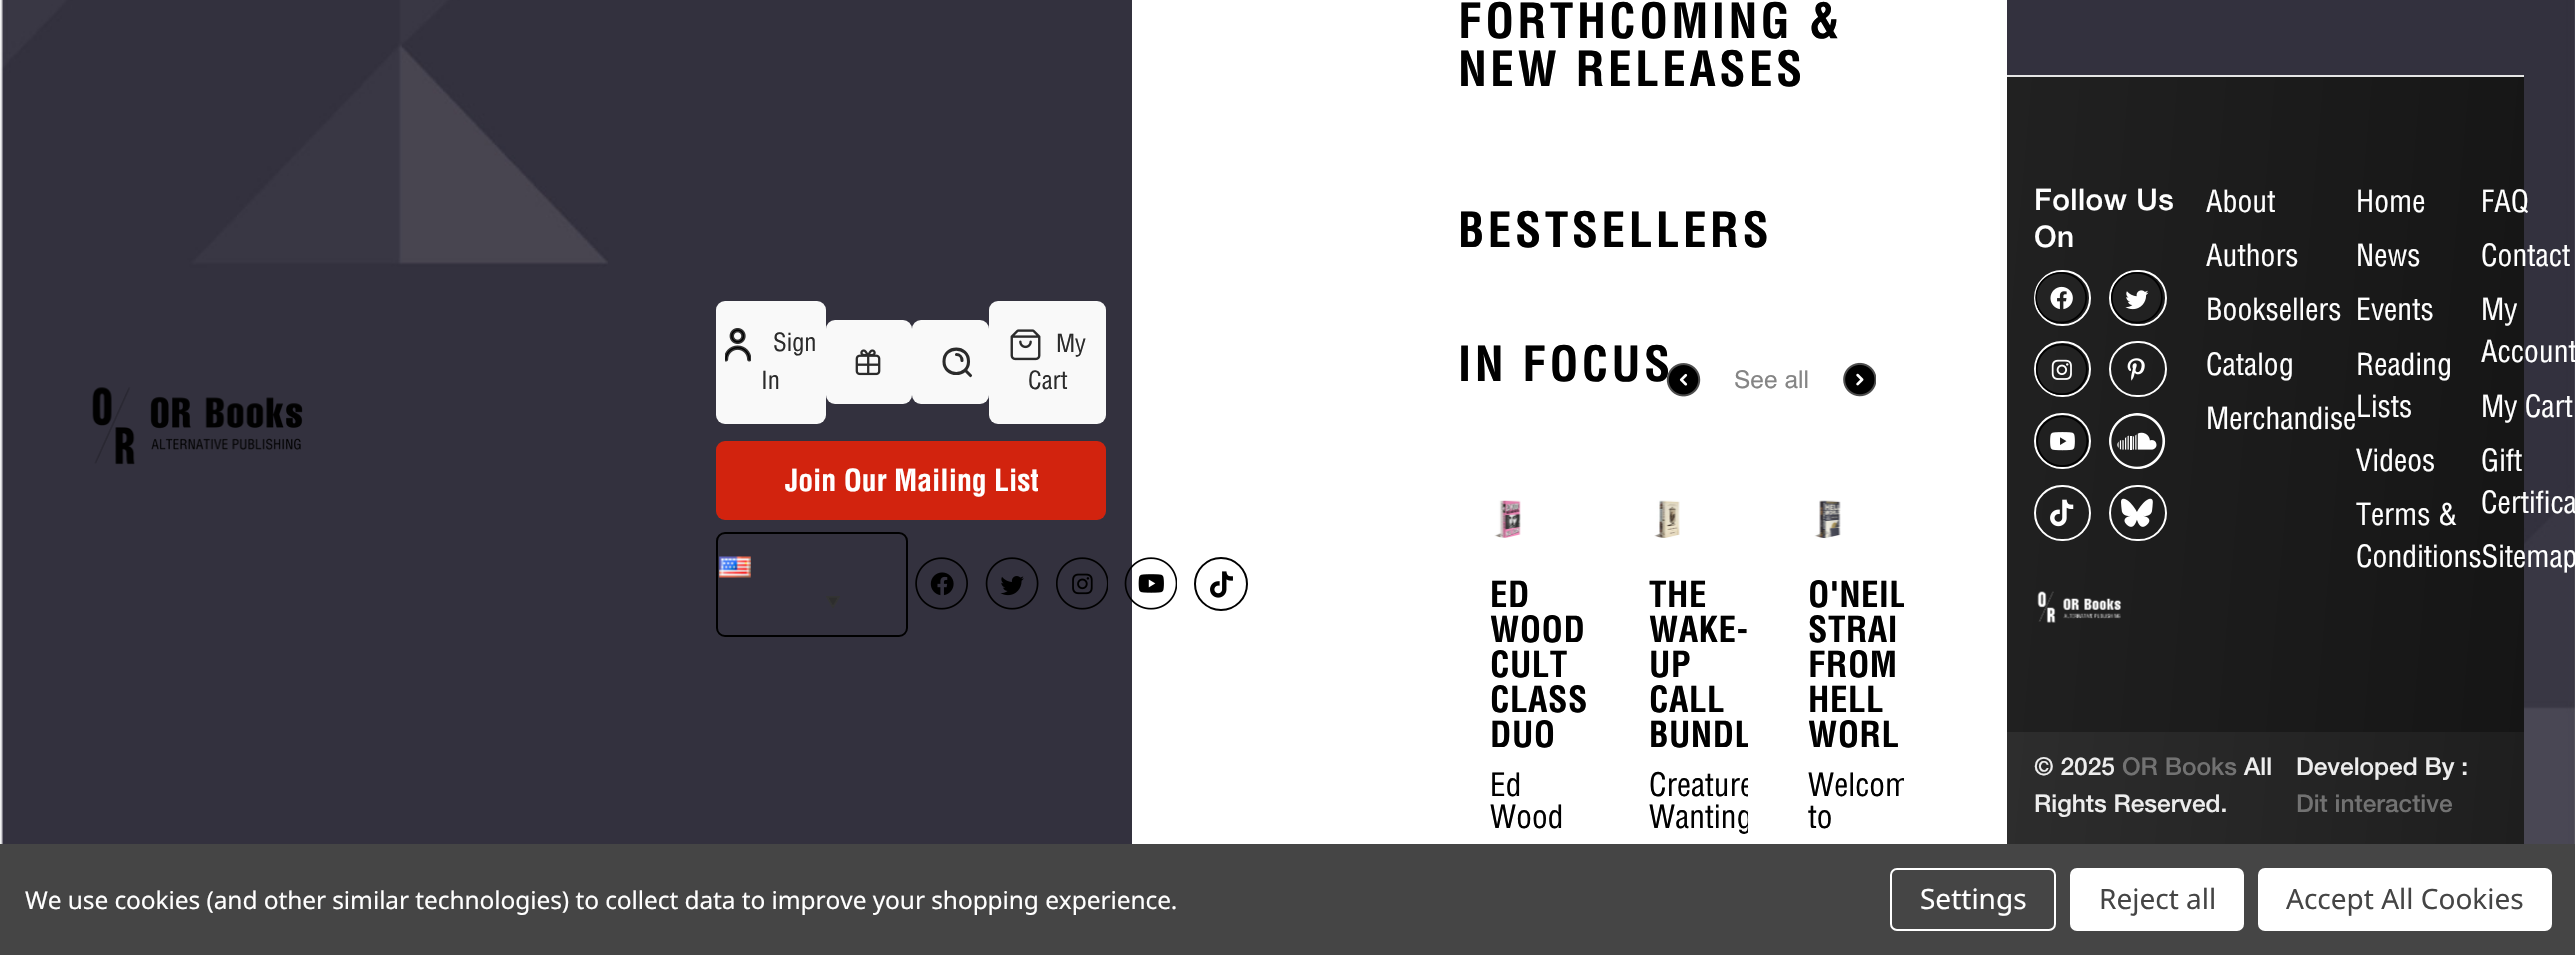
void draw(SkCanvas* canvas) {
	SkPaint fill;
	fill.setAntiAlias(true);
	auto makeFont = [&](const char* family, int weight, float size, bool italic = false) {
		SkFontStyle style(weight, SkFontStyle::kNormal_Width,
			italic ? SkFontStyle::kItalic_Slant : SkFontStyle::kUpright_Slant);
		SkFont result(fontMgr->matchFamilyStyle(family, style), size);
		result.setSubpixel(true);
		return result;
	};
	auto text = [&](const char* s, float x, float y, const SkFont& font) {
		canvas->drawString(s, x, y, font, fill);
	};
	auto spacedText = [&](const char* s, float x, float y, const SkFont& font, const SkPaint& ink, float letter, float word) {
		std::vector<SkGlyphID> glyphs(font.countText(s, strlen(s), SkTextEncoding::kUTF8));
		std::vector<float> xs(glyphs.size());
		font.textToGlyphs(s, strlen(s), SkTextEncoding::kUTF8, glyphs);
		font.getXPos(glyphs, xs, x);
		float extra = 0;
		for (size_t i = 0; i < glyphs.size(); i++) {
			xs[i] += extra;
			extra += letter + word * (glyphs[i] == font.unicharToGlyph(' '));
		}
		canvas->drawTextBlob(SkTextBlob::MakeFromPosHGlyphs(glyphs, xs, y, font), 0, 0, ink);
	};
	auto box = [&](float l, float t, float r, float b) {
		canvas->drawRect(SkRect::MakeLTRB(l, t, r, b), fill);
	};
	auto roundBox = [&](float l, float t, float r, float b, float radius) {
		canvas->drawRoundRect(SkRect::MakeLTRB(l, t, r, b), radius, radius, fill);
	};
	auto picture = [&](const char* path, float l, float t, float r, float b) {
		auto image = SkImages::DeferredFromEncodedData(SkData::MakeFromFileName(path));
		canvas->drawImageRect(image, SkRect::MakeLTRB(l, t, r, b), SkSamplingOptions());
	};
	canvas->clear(0xFFFFFFFF);
	picture("image0.png", 0, 0, 2575, 844);
	picture("image1.png", 92, 387, 303, 465);
	fill.setColor(0xFFF9F9F9);
	roundBox(716, 301, 826, 424, 9);
	picture("image2.png", 725, 328, 751, 362);
	roundBox(826, 320, 912, 404, 9);
	picture("image3.png", 855, 349, 881, 376);
	roundBox(912, 320, 989, 404, 9);
	fill.setStyle(SkPaint::kStroke_Style);
	fill.setStrokeWidth(3.1f);
	fill.setStrokeCap(SkPaint::kRound_Cap);
	fill.setColor(0xFF2B2B2B);
	canvas->drawPath(SkPathBuilder().moveTo(965, 370).lineTo(970.5f, 375.5f).moveTo(956.5f, 354.5f).cubicTo(959.5f, 354.5f, 962, 357, 962, 360.5f).moveTo(968.5f, 361.5f).cubicTo(968.5f, 377.5f, 944, 377.5f, 944, 361.5f).cubicTo(944, 345, 968.5f, 345, 968.5f, 361.5f).close().detach(), fill);
	fill.setStyle(SkPaint::kFill_Style);
	fill.setColor(0xFFF9F9F9);
	roundBox(989, 301, 1106, 424, 9);
	picture("image4.png", 1010, 329, 1041, 361);
	fill.setColor(0xFFD2230E);
	roundBox(716, 441, 1106, 520, 9);
	fill.setStyle(SkPaint::kStroke_Style);
	fill.setStrokeWidth(2);
	fill.setStrokeCap(SkPaint::kButt_Cap);
	fill.setColor(0xFF000000);
	canvas->drawRoundRect(SkRect::MakeLTRB(717, 533, 907, 636), 8, 8, fill);
	picture("image5.png", 719, 556, 751, 578);
	picture("image6.png", 826, 596, 840, 608);
	picture("image7.png", 915, 557, 968, 610);
	picture("image8.png", 985, 557, 1039, 610);
	picture("image9.png", 1056, 557, 1108, 610);
	fill.setStyle(SkPaint::kFill_Style);
	fill.setColor(0xFFFFFFFF);
	box(1132, 0, 2007, 844);
	picture("image10.png", 1124, 557, 1177, 610);
	fill.setStyle(SkPaint::kStroke_Style);
	fill.setColor(0xFF000000);
	canvas->drawCircle(1221, 584, 26, fill);
	picture("image11.png", 1210, 571, 1233, 598);
	picture("image13.png", 1843, 362, 1876, 397);
	picture("image14.png", 1494, 500, 1521, 538);
	picture("image15.png", 1654, 500, 1680, 538);
	picture("image16.png", 1814, 500, 1841, 539);
	fill.setStyle(SkPaint::kFill_Style);
	{
		const SkColor colors[] = {0xFF212121, 0xFF151515};
		const float stops[] = {0, 1};
		const SkPoint ends[] = {{1976, 436}, {2555, 487}};
		fill.setShader(SkGradientShader::MakeLinear(ends, colors, stops, 2, SkTileMode::kClamp));
		fill.setAlpha(255);
	}
	box(2007, 77, 2524, 732);
	fill.setShader(nullptr);
	fill.setColor(0xFFE5E5E5);
	box(2007, 75, 2524, 77);
	fill.setStyle(SkPaint::kStroke_Style);
	fill.setColor(0xFFFFFFFF);
	canvas->drawRoundRect(SkRect::MakeLTRB(2035, 271, 2090, 325), 27, 27, fill);
	picture("image17.png", 2035, 272, 2087, 323);
	canvas->drawRoundRect(SkRect::MakeLTRB(2110, 271, 2166, 325), 27, 27, fill);
	picture("image18.png", 2111, 272, 2163, 323);
	canvas->drawRoundRect(SkRect::MakeLTRB(2035, 342, 2090, 396), 27, 27, fill);
	picture("image19.png", 2035, 344, 2088, 395);
	canvas->drawRoundRect(SkRect::MakeLTRB(2110, 342, 2166, 396), 27, 27, fill);
	picture("image20.png", 2127, 358, 2145, 381);
	canvas->drawRoundRect(SkRect::MakeLTRB(2035, 414, 2090, 468), 27, 27, fill);
	picture("image21.png", 2036, 416, 2088, 467);
	picture("image22.png", 2109, 413, 2166, 469);
	canvas->drawRoundRect(SkRect::MakeLTRB(2035, 486, 2090, 540), 27, 27, fill);
	picture("image23.png", 2050, 499, 2074, 527);
	canvas->drawRoundRect(SkRect::MakeLTRB(2110, 486, 2166, 540), 27, 27, fill);
	picture("image24.png", 2121, 498, 2153, 527);
	picture("image25.png", 2037, 591, 2122, 623);
	fill.setStyle(SkPaint::kFill_Style);
	{
		const SkColor colors[] = {0xFF2D2D2D, 0xFF1E1E1E};
		const float stops[] = {0, 1};
		const SkPoint ends[] = {{2004, 765}, {2526, 811}};
		fill.setShader(SkGradientShader::MakeLinear(ends, colors, stops, 2, SkTileMode::kClamp));
		fill.setAlpha(255);
	}
	box(2007, 732, 2524, 844);
	fill.setShader(nullptr);
	fill.setColor(0xFF454545);
	box(0, 844, 2575, 955);
	fill.setStyle(SkPaint::kStroke_Style);
	fill.setColor(0xFFFFFFFF);
	canvas->drawRoundRect(SkRect::MakeLTRB(1891, 869, 2055, 930), 6, 6, fill);
	fill.setStyle(SkPaint::kFill_Style);
	roundBox(2070, 868, 2244, 931, 7);
	roundBox(2258, 868, 2552, 931, 7);
	auto font1 = makeFont("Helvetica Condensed", 400, 24.5f);
	fill.setColor(0xFF2B2B2B);
	text("Sign", 773, 351, font1);
	text("In", 761, 389, font1);
	text("My", 1056, 352, font1);
	text("Cart", 1028, 389, font1);
	auto font2 = makeFont("Helvetica", 700, 29.75f);
	fill.setColor(0xFFFFFFFF);
	text("Join Our Mailing List", 785, 491, font2);
	auto font3 = makeFont("Helvetica", 700, 47.25f);
	fill.setColor(0xFF000000);
	spacedText("FORTHCOMING &", 1458, 38, font3, fill, 3.5f, 0);
	spacedText("NEW RELEASES", 1458, 86, font3, fill, 3.5f, 0);
	spacedText("BESTSELLERS", 1458, 247, font3, fill, 3.5f, 0);
	spacedText("IN FOCUS", 1458, 381, font3, fill, 3.5f, 0);
	auto font4 = makeFont("Helvetica", 400, 24.5f);
	fill.setColor(0xFF858585);
	text("See all", 1734, 388, font4);
	picture("image12.png", 1666, 363, 1701, 397);
	auto font5 = makeFont("Helvetica", 700, 35);
	fill.setColor(0xFF000000);
	spacedText("ED", 1490, 607, font5, fill, 0.5f, 0);
	spacedText("WOOD", 1490, 642, font5, fill, 0.5f, 0);
	spacedText("CULT", 1490, 677, font5, fill, 0.5f, 0);
	spacedText("CLASS", 1490, 712, font5, fill, 0.5f, 0);
	spacedText("DUO", 1490, 747, font5, fill, 0.5f, 0);
	auto font6 = makeFont("Helvetica Condensed", 400, 31.5f);
	text("Ed", 1490, 796, font6);
	text("Wood", 1490, 828, font6);
	spacedText("THE", 1649, 607, font5, fill, 0.5f, 0);
	spacedText("WAKE-", 1649, 642, font5, fill, 0.5f, 0);
	spacedText("UP", 1649, 677, font5, fill, 0.5f, 0);
	spacedText("CALL", 1649, 712, font5, fill, 0.5f, 0);
	canvas->save();
	canvas->clipRect(SkRect::MakeLTRB(1589, 443, 1748, 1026));
	spacedText("BUNDL", 1649, 747, font5, fill, 0.5f, 0);
	text("Creature", 1649, 796, font6);
	text("Wanting", 1649, 828, font6);
	canvas->restore();
	canvas->save();
	canvas->clipRect(SkRect::MakeLTRB(1748, 443, 1904, 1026));
	spacedText("O'NEIL", 1808, 607, font5, fill, 0.5f, 0);
	canvas->restore();
	spacedText("STRAI", 1808, 642, font5, fill, 0.5f, 0);
	spacedText("FROM", 1808, 677, font5, fill, 0.5f, 0);
	spacedText("HELL", 1808, 712, font5, fill, 0.5f, 0);
	spacedText("WORL", 1808, 747, font5, fill, 0.5f, 0);
	canvas->save();
	canvas->clipRect(SkRect::MakeLTRB(1748, 443, 1904, 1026));
	text("Welcom", 1808, 796, font6);
	canvas->restore();
	text("to", 1808, 828, font6);
	auto font7 = makeFont("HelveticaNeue", 500, 29.75f);
	fill.setColor(0xFFFFFFFF);
	spacedText("Follow Us", 2034, 210, font7, fill, 0.5f, 0);
	spacedText("On", 2034, 247, font7, fill, 0.5f, 0);
	auto font8 = makeFont("Helvetica Condensed", 400, 29.75f);
	text("About", 2206, 212, font8);
	text("Authors", 2206, 266, font8);
	text("Booksellers", 2206, 320, font8);
	text("Catalog", 2206, 375, font8);
	text("Merchandise", 2206, 429, font8);
	text("Home", 2356, 212, font8);
	text("News", 2356, 266, font8);
	text("Events", 2356, 320, font8);
	text("Reading", 2356, 375, font8);
	text("Lists", 2356, 417, font8);
	text("Videos", 2356, 471, font8);
	text("Terms &", 2356, 525, font8);
	text("ConditionsSitemap", 2356, 567, font8);
	text("FAQ", 2481, 212, font8);
	text("Contact", 2481, 266, font8);
	text("My", 2481, 320, font8);
	text("Account", 2481, 362, font8);
	text("My Cart", 2481, 417, font8);
	text("Gift", 2481, 471, font8);
	text("Certifica", 2481, 513, font8);
	auto font9 = makeFont("HelveticaNeue", 500, 24.5f);
	fill.setColor(0xFFEDEDED);
	text("© 2025", 2034, 775, font9);
	fill.setColor(0xFF727272);
	text("OR Books", 2122, 775, font9);
	fill.setColor(0xFFEDEDED);
	text("All", 2244, 775, font9);
	text("Rights Reserved.", 2034, 812, font9);
	text("Developed By :", 2296, 775, font9);
	fill.setColor(0xFF727272);
	text("Dit interactive", 2296, 812, font9);
	auto font10 = makeFont("Noto Sans", 400, 24.5f);
	fill.setColor(0xFFFFFFFF);
	spacedText("We use cookies (and other similar technologies) to collect data to improve your shopping experience.", 25, 909, font10, fill, -0.09f, 0);
	auto font11 = makeFont("Noto Sans", 400, 28);
	text("Settings", 1920, 909, font11);
	fill.setColor(0xFF454545);
	text("Reject all", 2099, 909, font11);
	text("Accept All Cookies", 2286, 909, font11);
}
